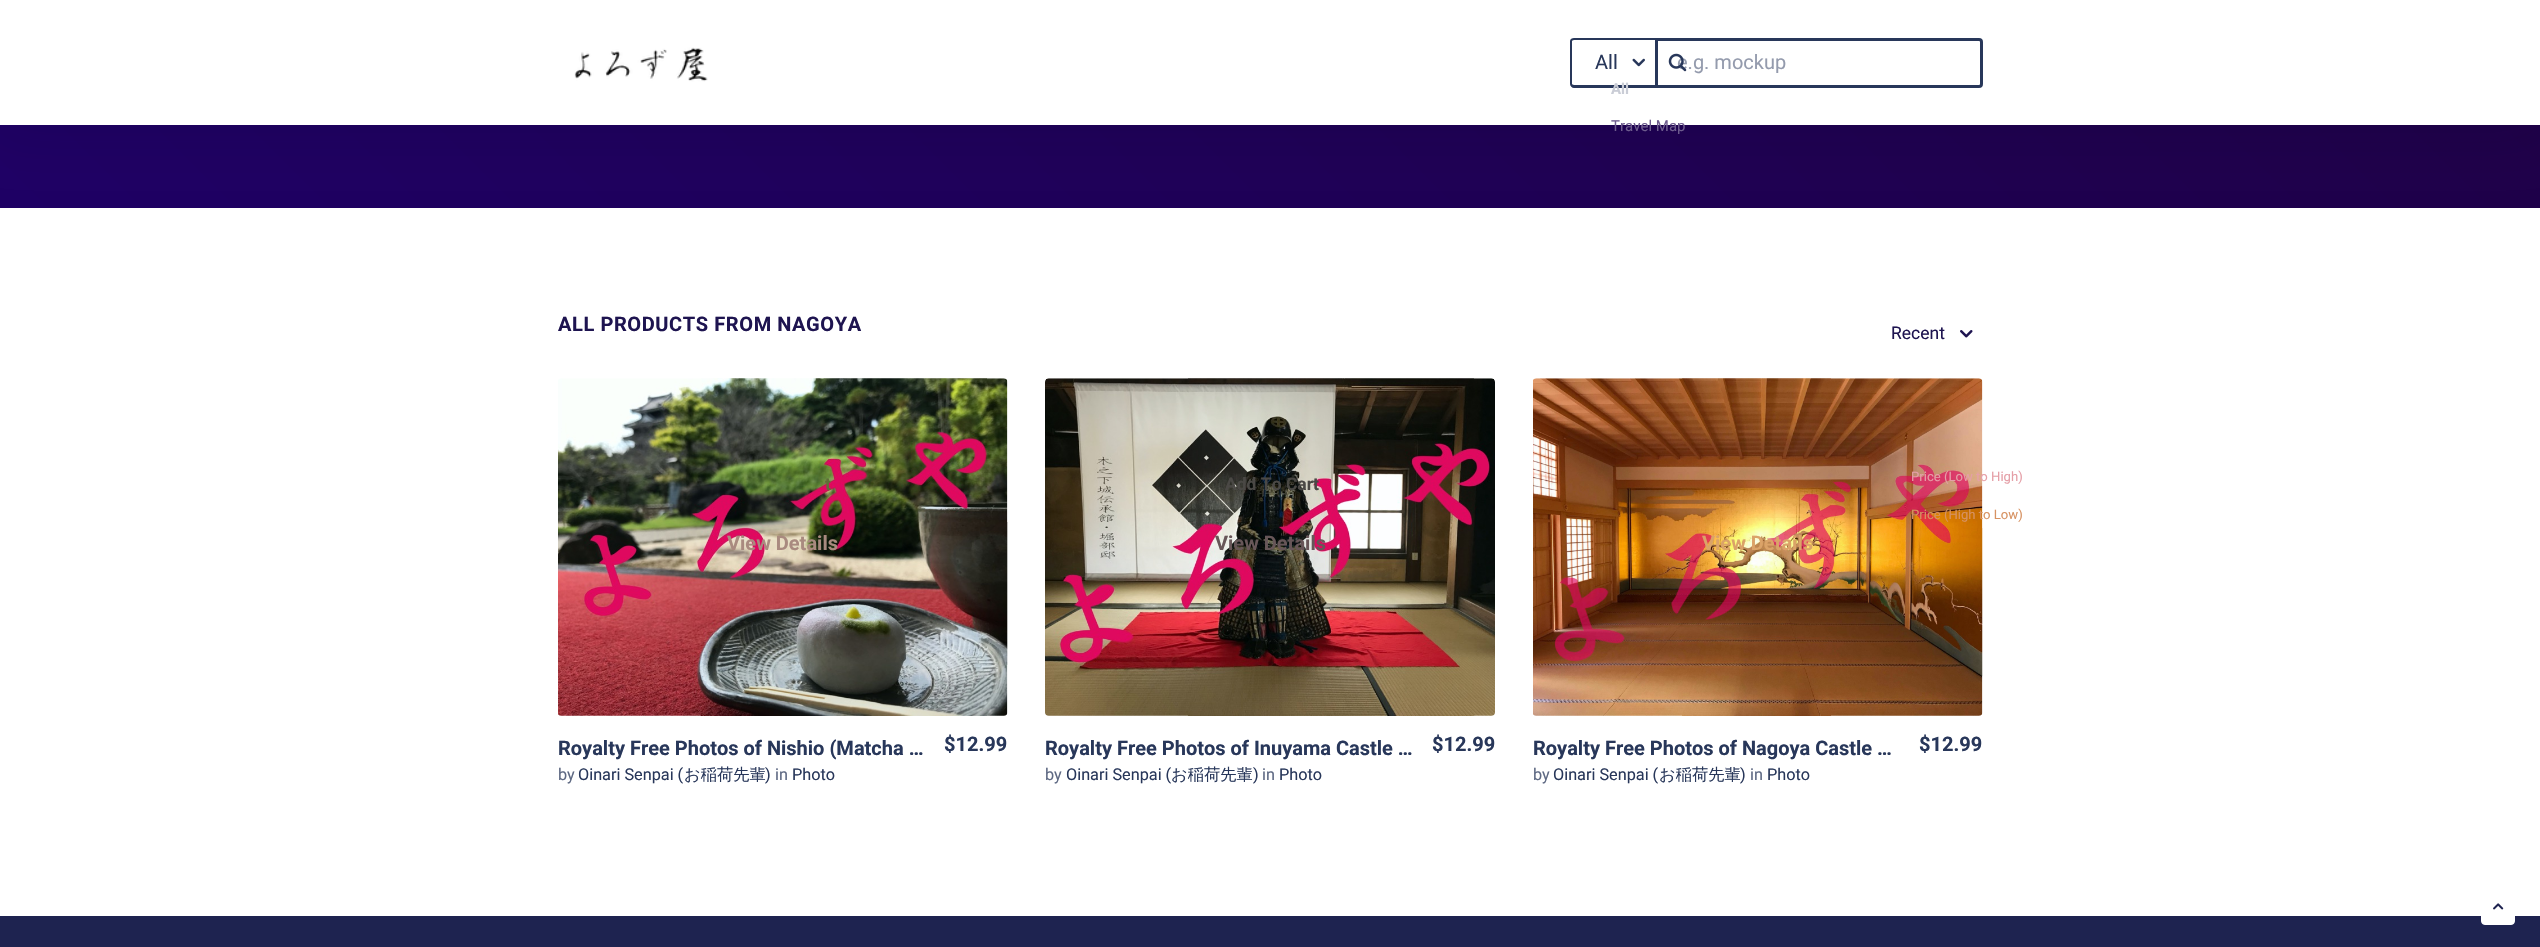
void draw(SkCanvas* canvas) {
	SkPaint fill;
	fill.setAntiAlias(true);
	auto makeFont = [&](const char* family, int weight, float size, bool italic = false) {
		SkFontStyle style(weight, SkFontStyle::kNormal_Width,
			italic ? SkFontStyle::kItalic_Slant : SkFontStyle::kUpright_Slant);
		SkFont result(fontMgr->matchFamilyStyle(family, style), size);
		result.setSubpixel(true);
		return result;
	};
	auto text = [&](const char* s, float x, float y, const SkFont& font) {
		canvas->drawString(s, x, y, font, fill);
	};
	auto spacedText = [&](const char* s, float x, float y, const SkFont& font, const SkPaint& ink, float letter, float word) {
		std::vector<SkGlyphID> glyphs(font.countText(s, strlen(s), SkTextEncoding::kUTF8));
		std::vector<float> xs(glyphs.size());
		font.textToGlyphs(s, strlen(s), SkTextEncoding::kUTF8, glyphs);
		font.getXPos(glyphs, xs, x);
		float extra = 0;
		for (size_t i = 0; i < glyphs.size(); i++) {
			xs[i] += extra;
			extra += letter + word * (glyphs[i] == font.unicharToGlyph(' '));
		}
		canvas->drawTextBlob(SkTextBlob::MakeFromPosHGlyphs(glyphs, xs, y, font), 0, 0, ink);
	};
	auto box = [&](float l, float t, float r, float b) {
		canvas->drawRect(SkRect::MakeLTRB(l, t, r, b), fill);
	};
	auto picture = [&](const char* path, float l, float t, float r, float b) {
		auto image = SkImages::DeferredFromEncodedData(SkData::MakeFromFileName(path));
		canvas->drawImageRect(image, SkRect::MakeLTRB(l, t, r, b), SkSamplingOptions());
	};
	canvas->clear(0xFFFFFFFF);
	{
		const SkColor colors[] = {0xFF1E0046, 0xFF1E0064};
		const float stops[] = {0, 1};
		const SkPoint ends[] = {{1975, -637}, {565, 772}};
		fill.setShader(SkGradientShader::MakeLinear(ends, colors, stops, 2, SkTileMode::kClamp));
		fill.setAlpha(255);
	}
	box(0, 125, 2540, 208);
	fill.setShader(nullptr);
	fill.setColor(0x1A0A0A19);
	fill.setMaskFilter(SkMaskFilter::MakeBlur(kNormal_SkBlurStyle, 25));
	canvas->drawRect(SkRect::MakeLTRB(0, 6, 2540, 131), fill);
	fill.setMaskFilter(nullptr);
	fill.setColor(0xFFFFFFFF);
	box(0, 0, 2540, 125);
	picture("image0.png", 574, 47, 708, 82);
	fill.setColor(0xFF28375A);
	canvas->drawPath(SkPathBuilder(SkPathFillType::kEvenOdd).moveTo(1574, 38).lineTo(1655, 38).lineTo(1655, 88).lineTo(1574, 88).cubicTo(1572, 88, 1570, 86, 1570, 84).lineTo(1570, 41).cubicTo(1570, 39, 1572, 38, 1574, 38).close().moveTo(1574, 40).lineTo(1655, 40).lineTo(1655, 85).lineTo(1574, 85).cubicTo(1573, 85, 1572, 84, 1572, 84).lineTo(1572, 41).cubicTo(1572, 41, 1573, 40, 1574, 40).close().detach(), fill);
	picture("image1.png", 1632, 58, 1645, 67);
	fill.setStyle(SkPaint::kStroke_Style);
	fill.setStrokeWidth(3);
	canvas->drawPath(SkPathBuilder().moveTo(1656.5f, 39.5f).lineTo(1979, 39.5f).cubicTo(1980.5f, 39.5f, 1981.5f, 40.5f, 1981.5f, 42).lineTo(1981.5f, 84).cubicTo(1981.5f, 85.5f, 1980.5f, 86.5f, 1979, 86.5f).lineTo(1656.5f, 86.5f).close().detach(), fill);
	picture("image3.png", 1960, 330, 1973, 338);
	picture("image4.png", 558, 378, 1008, 716);
	picture("image5.png", 1045, 378, 1495, 716);
	picture("image6.png", 1533, 378, 1983, 716);
	fill.setStyle(SkPaint::kFill_Style);
	fill.setColor(0xFF1E2350);
	box(0, 916, 2540, 947);
	fill.setColor(0xFFFFFFFF);
	canvas->drawRoundRect(SkRect::MakeLTRB(2481.5f, 889.5f, 2514.5f, 924.5f), 3.5f, 3.5f, fill);
	fill.setStyle(SkPaint::kStroke_Style);
	fill.setStrokeWidth(1);
	canvas->drawRoundRect(SkRect::MakeLTRB(2481.5f, 889.5f, 2514.5f, 924.5f), 3.5f, 3.5f, fill);
	picture("image7.png", 2493, 903, 2504, 910);
	auto font1 = makeFont("Roboto", 400, 20);
	fill.setStyle(SkPaint::kFill_Style);
	fill.setColor(0xFF28375A);
	text("All", 1595, 69, font1);
	auto font2 = makeFont("Roboto", 700, 15);
	fill.setColor(0xFFCACDD6);
	text("All", 1611, 94, font2);
	auto font3 = makeFont("Roboto", 400, 15);
	fill.setColor(0xFF6E5C8E);
	text("Travel Map", 1611, 131, font3);
	fill.setColor(0xFF949BAD);
	text("e.g. mockup", 1677, 69, font1);
	picture("image2.png", 1668, 53, 1687, 72);
	auto font4 = makeFont("Roboto", 700, 20);
	fill.setColor(0xFF1E1450);
	spacedText("ALL PRODUCTS FROM NAGOYA", 558, 331, font4, fill, 0.6f, 0);
	auto font5 = makeFont("Roboto", 400, 17.5f);
	text("Recent", 1891, 339, font5);
	auto font6 = makeFont("Roboto", 400, 13.1f);
	fill.setColor(0xFFE59FA7);
	text("Price (Low to High)", 1911, 481, font6);
	fill.setColor(0xFFD79262);
	text("Price (High to Low)", 1911, 519, font6);
	fill.setColor(0xFFD88203);
	text("i", 1919, 556, font6);
	auto font7 = makeFont("Roboto", 700, 17.5f);
	fill.setColor(0xFF5F6E37);
	text("t", 825, 490, font7);
	fill.setColor(0xFFA98A7F);
	text("View Details", 727, 550, font4);
	fill.setColor(0xFF28375A);
	text("Royalty Free Photos of Nishio (Matcha …", 558, 755, font4);
	auto font8 = makeFont("Roboto", 400, 16.25f);
	fill.setColor(0xFF5E6983);
	text("by", 558, 780, font8);
	fill.setColor(0xFF28375A);
	text("Oinari Senpai (", 578, 780, font8);
	auto font9 = makeFont("WenQuanYi Zen Hei", 500, 16.25f);
	text("お稲荷先輩", 684, 780, font9);
	text(")", 765, 780, font8);
	fill.setColor(0xFF5E6983);
	text("in", 775, 780, font8);
	fill.setColor(0xFF28375A);
	text("Photo", 792, 780, font8);
	text("$12.99", 944, 751, font4);
	fill.setColor(0xFF4A4845);
	text("Add To Cart", 1225, 490, font7);
	fill.setColor(0xFF675658);
	text("View Details", 1215, 550, font4);
	fill.setColor(0xFF28375A);
	text("Royalty Free Photos of Inuyama Castle …", 1045, 755, font4);
	fill.setColor(0xFF5E6983);
	text("by", 1045, 780, font8);
	fill.setColor(0xFF28375A);
	text("Oinari Senpai (", 1066, 780, font8);
	text("お稲荷先輩", 1171, 780, font9);
	text(")", 1253, 780, font8);
	fill.setColor(0xFF5E6983);
	text("in", 1262, 780, font8);
	fill.setColor(0xFF28375A);
	text("Photo", 1279, 780, font8);
	text("$12.99", 1432, 751, font4);
	fill.setColor(0xFFDBA368);
	text("View Details", 1702, 550, font4);
	fill.setColor(0xFF28375A);
	text("Royalty Free Photos of Nagoya Castle …", 1533, 755, font4);
	fill.setColor(0xFF5E6983);
	text("by", 1533, 780, font8);
	fill.setColor(0xFF28375A);
	text("Oinari Senpai (", 1553, 780, font8);
	text("お稲荷先輩", 1659, 780, font9);
	text(")", 1740, 780, font8);
	fill.setColor(0xFF5E6983);
	text("in", 1750, 780, font8);
	fill.setColor(0xFF28375A);
	text("Photo", 1767, 780, font8);
	text("$12.99", 1919, 751, font4);
}
